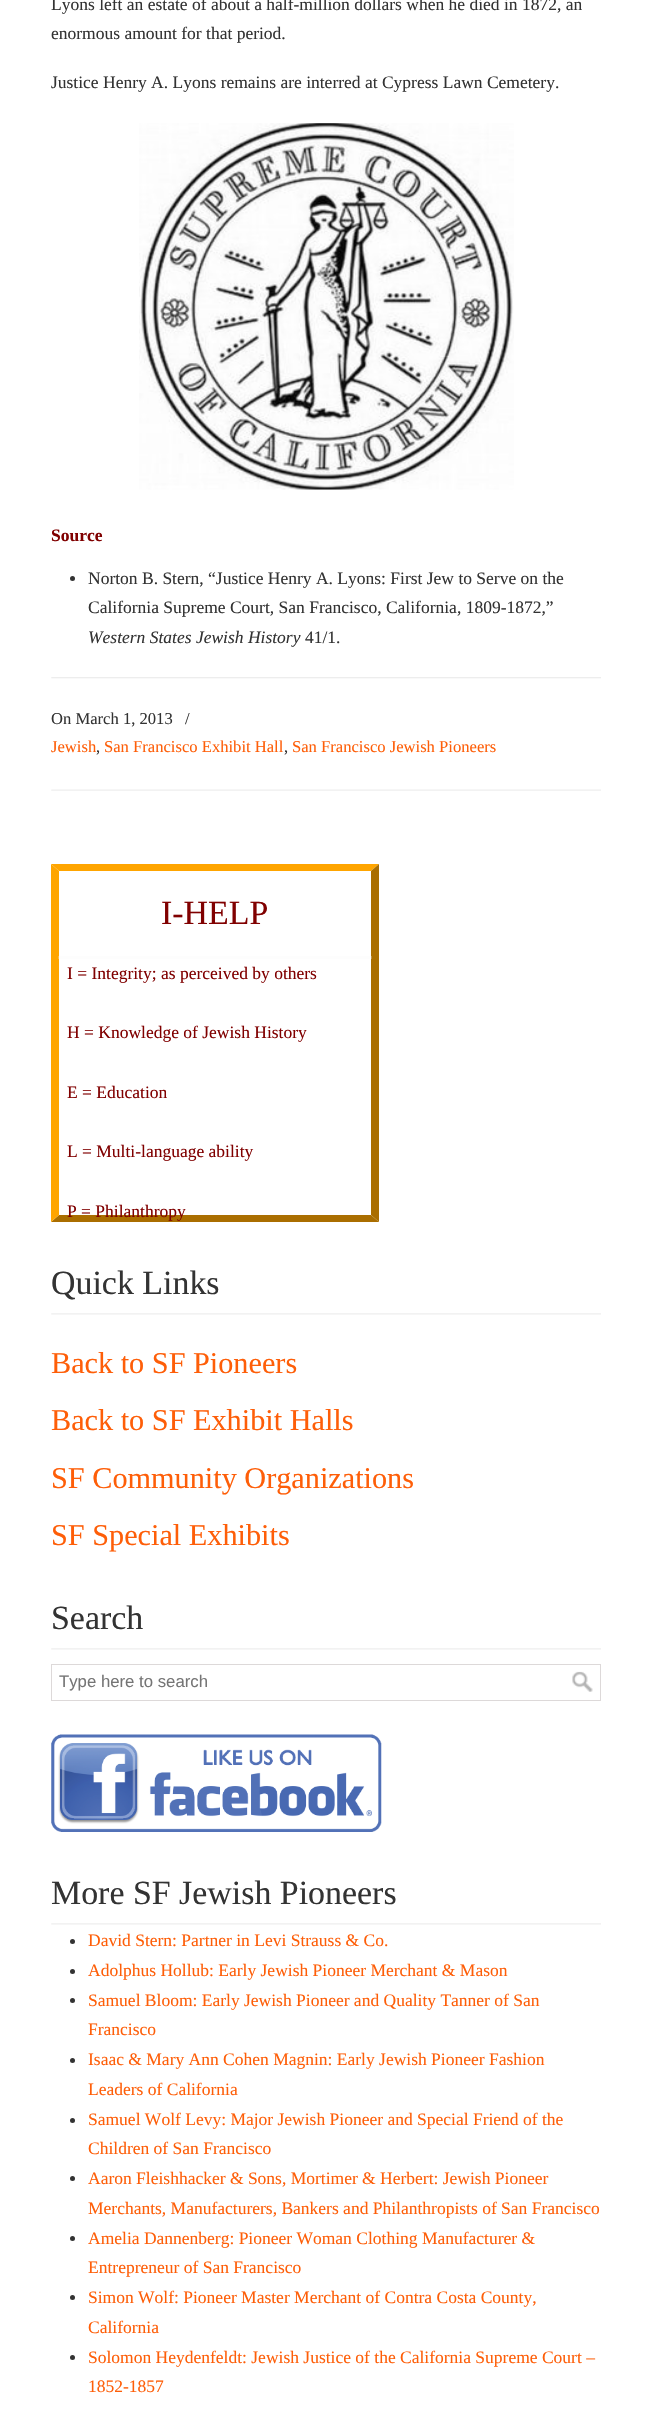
void draw(SkCanvas* canvas) {
	SkPaint fill;
	fill.setAntiAlias(true);
	auto makeFont = [&](const char* family, int weight, float size, bool italic = false) {
		SkFontStyle style(weight, SkFontStyle::kNormal_Width,
			italic ? SkFontStyle::kItalic_Slant : SkFontStyle::kUpright_Slant);
		SkFont result(fontMgr->matchFamilyStyle(family, style), size);
		result.setSubpixel(true);
		return result;
	};
	auto text = [&](const char* s, float x, float y, const SkFont& font) {
		canvas->drawString(s, x, y, font, fill);
	};
	auto box = [&](float l, float t, float r, float b) {
		canvas->drawRect(SkRect::MakeLTRB(l, t, r, b), fill);
	};
	auto picture = [&](const char* path, float l, float t, float r, float b) {
		auto image = SkImages::DeferredFromEncodedData(SkData::MakeFromFileName(path));
		canvas->drawImageRect(image, SkRect::MakeLTRB(l, t, r, b), SkSamplingOptions());
	};
	canvas->clear(0xFFFFFFFF);
	picture("image0.png", 139, 123, 514, 490);
	fill.setColor(0xFF333333);
	canvas->drawCircle(72.5f, 578.5f, 2.5f, fill);
	picture("image1.png", 51, 677, 601, 679);
	picture("image2.png", 51, 789, 601, 791);
	fill.setColor(0xFFFFA500);
	canvas->drawPath(SkPathBuilder().moveTo(51, 864).lineTo(379, 864).lineTo(371, 871).lineTo(59, 871).close().detach(), fill);
	fill.setColor(0xFFAA6E00);
	canvas->drawPath(SkPathBuilder().moveTo(379, 864).lineTo(379, 1222).lineTo(371, 1215).lineTo(371, 871).close().detach(), fill);
	canvas->drawPath(SkPathBuilder().moveTo(379, 1222).lineTo(51, 1222).lineTo(59, 1215).lineTo(371, 1215).close().detach(), fill);
	fill.setColor(0xFFFFA500);
	canvas->drawPath(SkPathBuilder().moveTo(51, 1222).lineTo(51, 864).lineTo(59, 871).lineTo(59, 1215).close().detach(), fill);
	fill.setColor(0x45F8F8F8);
	box(58, 956, 372, 959);
	picture("image3.png", 51, 1313, 601, 1315);
	picture("image3.png", 51, 1648, 601, 1650);
	fill.setStyle(SkPaint::kStroke_Style);
	fill.setStrokeWidth(1);
	fill.setColor(0xFFDDD9D9);
	canvas->drawRect(SkRect::MakeLTRB(51.5f, 1664.5f, 600.5f, 1700.5f), fill);
	picture("image4.png", 572, 1671, 593, 1692);
	picture("image5.png", 51, 1734, 382, 1832);
	picture("image3.png", 51, 1923, 601, 1925);
	fill.setStyle(SkPaint::kFill_Style);
	fill.setColor(0xFF333333);
	canvas->drawCircle(72.5f, 1941.5f, 2.5f, fill);
	canvas->drawCircle(72.5f, 1971.5f, 2.5f, fill);
	canvas->drawCircle(72.5f, 2000.5f, 2.5f, fill);
	canvas->drawCircle(72.5f, 2060.5f, 2.5f, fill);
	canvas->drawCircle(72.5f, 2120.5f, 2.5f, fill);
	canvas->drawCircle(72.5f, 2178.5f, 2.5f, fill);
	canvas->drawCircle(72.5f, 2238.5f, 2.5f, fill);
	canvas->drawCircle(72.5f, 2297.5f, 2.5f, fill);
	canvas->drawCircle(72.5f, 2357.5f, 2.5f, fill);
	auto font1 = makeFont("Liberation Serif", 400, 17.5f);
	text("Lyons left an estate of about a half-million dollars when he died in 1872, an", 51, 10, font1);
	text("enormous amount for that period.", 51, 39, font1);
	text("Justice Henry A. Lyons remains are interred at Cypress Lawn Cemetery.", 51, 88, font1);
	auto font2 = makeFont("Liberation Serif", 700, 17.5f);
	fill.setColor(0xFF800000);
	text("Source", 51, 541, font2);
	fill.setColor(0xFF333333);
	text("Norton B. Stern, “Justice Henry A. Lyons: First Jew to Serve on the", 88, 584, font1);
	text("California Supreme Court, San Francisco, California, 1809-1872,”", 88, 613, font1);
	auto font3 = makeFont("Liberation Serif", 400, 17.5f, true);
	text("Western States Jewish History", 88, 643, font3);
	text("41/1.", 305, 643, font1);
	auto font4 = makeFont("Liberation Serif", 400, 16.6f);
	text("On March 1, 2013", 51, 724, font4);
	text("/", 185, 724, font4);
	fill.setColor(0xFFFE5E08);
	text("Jewish", 51, 752, font4);
	fill.setColor(0xFF333333);
	text(",", 96, 752, font4);
	fill.setColor(0xFFFE5E08);
	text("San Francisco Exhibit Hall", 104, 752, font4);
	fill.setColor(0xFF333333);
	text(",", 284, 752, font4);
	fill.setColor(0xFFFE5E08);
	text("San Francisco Jewish Pioneers", 292, 752, font4);
	auto font5 = makeFont("Liberation Serif", 400, 33.9f);
	fill.setColor(0xFF800000);
	text("I-HELP", 161, 924, font5);
	text("I = Integrity; as perceived by others", 67, 979, font1);
	text("H = Knowledge of Jewish History", 67, 1038, font1);
	text("E = Education", 67, 1098, font1);
	text("L = Multi-language ability", 67, 1157, font1);
	text("P = Philanthropy", 67, 1217, font1);
	fill.setColor(0xFF333333);
	text("Quick Links", 51, 1294, font5);
	auto font6 = makeFont("Liberation Serif", 400, 30.25f);
	fill.setColor(0xFFFE5E08);
	text("Back to SF Pioneers", 51, 1373, font6);
	text("Back to SF Exhibit Halls", 51, 1430, font6);
	text("SF Community Organizations", 51, 1488, font6);
	text("SF Special Exhibits", 51, 1545, font6);
	fill.setColor(0xFF333333);
	text("Search", 51, 1629, font5);
	auto font7 = makeFont("Liberation Sans", 400, 16.75f);
	fill.setColor(0xFF757575);
	text("Type here to search", 59, 1687, font7);
	fill.setColor(0xFF333333);
	text("More SF Jewish Pioneers", 51, 1904, font5);
	fill.setColor(0xFFFE5E08);
	text("David Stern: Partner in Levi Strauss & Co.", 88, 1946, font1);
	text("Adolphus Hollub: Early Jewish Pioneer Merchant & Mason", 88, 1976, font1);
	text("Samuel Bloom: Early Jewish Pioneer and Quality Tanner of San", 88, 2006, font1);
	text("Francisco", 88, 2035, font1);
	text("Isaac & Mary Ann Cohen Magnin: Early Jewish Pioneer Fashion", 88, 2065, font1);
	text("Leaders of California", 88, 2095, font1);
	text("Samuel Wolf Levy: Major Jewish Pioneer and Special Friend of the", 88, 2125, font1);
	text("Children of San Francisco", 88, 2154, font1);
	text("Aaron Fleishhacker & Sons, Mortimer & Herbert: Jewish Pioneer", 88, 2184, font1);
	text("Merchants, Manufacturers, Bankers and Philanthropists of San Francisco", 88, 2214, font1);
	text("Amelia Dannenberg: Pioneer Woman Clothing Manufacturer &", 88, 2244, font1);
	text("Entrepreneur of San Francisco", 88, 2273, font1);
	text("Simon Wolf: Pioneer Master Merchant of Contra Costa County,", 88, 2303, font1);
	text("California", 88, 2333, font1);
	text("Solomon Heydenfeldt: Jewish Justice of the California Supreme Court –", 88, 2363, font1);
	text("1852-1857", 88, 2392, font1);
}
